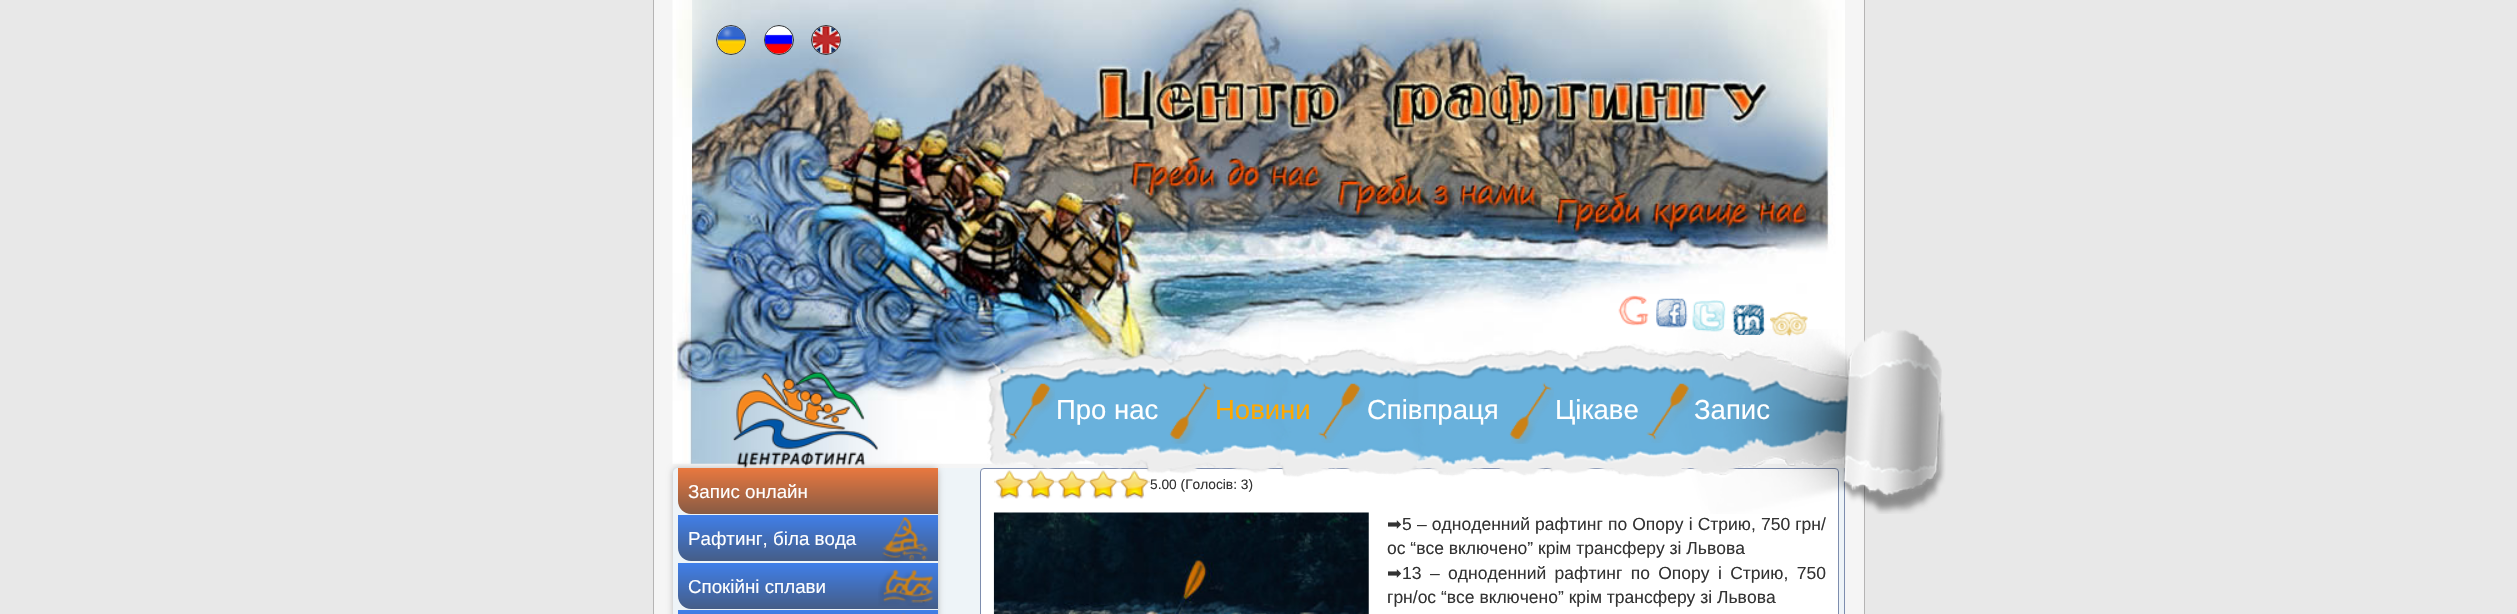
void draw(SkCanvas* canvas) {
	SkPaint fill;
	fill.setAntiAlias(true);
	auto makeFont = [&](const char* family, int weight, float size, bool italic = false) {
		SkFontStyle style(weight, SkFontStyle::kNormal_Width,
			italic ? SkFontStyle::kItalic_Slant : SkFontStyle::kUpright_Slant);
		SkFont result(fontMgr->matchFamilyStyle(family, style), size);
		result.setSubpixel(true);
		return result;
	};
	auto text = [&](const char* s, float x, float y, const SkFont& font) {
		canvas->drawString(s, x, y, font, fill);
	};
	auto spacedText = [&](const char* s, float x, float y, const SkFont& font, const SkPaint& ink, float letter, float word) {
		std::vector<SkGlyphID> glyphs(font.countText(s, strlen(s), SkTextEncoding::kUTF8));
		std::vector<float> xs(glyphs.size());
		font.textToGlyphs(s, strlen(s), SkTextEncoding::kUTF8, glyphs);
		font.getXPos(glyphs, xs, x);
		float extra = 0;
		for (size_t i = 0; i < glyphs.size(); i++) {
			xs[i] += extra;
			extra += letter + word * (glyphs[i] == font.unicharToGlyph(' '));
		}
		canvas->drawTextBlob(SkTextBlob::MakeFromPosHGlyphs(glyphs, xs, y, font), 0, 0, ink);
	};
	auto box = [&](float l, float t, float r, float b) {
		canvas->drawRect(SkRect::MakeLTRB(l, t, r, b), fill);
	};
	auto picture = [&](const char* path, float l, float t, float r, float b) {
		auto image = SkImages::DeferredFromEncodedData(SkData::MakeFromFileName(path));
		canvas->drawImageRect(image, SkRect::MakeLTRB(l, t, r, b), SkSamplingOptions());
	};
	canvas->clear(0xFFE8E8E8);
	fill.setColor(0xFFF5F5F5);
	box(654, 0, 1864, 614);
	fill.setColor(0xFFB5B4B4);
	box(1864, 0, 1865, 614);
	box(653, 0, 654, 614);
	picture("image0.png", 672, 0, 1845, 464);
	fill.setStyle(SkPaint::kStroke_Style);
	fill.setStrokeWidth(1);
	fill.setColor(0xFF333333);
	canvas->drawCircle(731, 40, 14.5f, fill);
	canvas->drawCircle(779, 40, 14.5f, fill);
	canvas->drawCircle(826, 40, 14.5f, fill);
	picture("image1.png", 717, 26, 745, 54);
	picture("image2.png", 765, 26, 793, 54);
	picture("image3.png", 812, 26, 840, 54);
	fill.setStyle(SkPaint::kFill_Style);
	fill.setColor(0xFFEEF4F8);
	box(673, 468, 1844, 614);
	canvas->save();
	canvas->clipPath(SkPathBuilder(SkPathFillType::kEvenOdd).moveTo(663, 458).lineTo(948, 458).lineTo(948, 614).lineTo(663, 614).close().moveTo(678, 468).lineTo(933, 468).cubicTo(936, 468, 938, 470, 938, 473).lineTo(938, 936).cubicTo(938, 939, 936, 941, 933, 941).lineTo(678, 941).cubicTo(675, 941, 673, 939, 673, 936).lineTo(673, 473).cubicTo(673, 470, 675, 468, 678, 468).close().detach(), true);
	fill.setColor(0xFFBBBBBB);
	fill.setMaskFilter(SkMaskFilter::MakeBlur(kNormal_SkBlurStyle, 3));
	canvas->drawRoundRect(SkRect::MakeLTRB(673, 468, 938, 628), 5, 5, fill);
	fill.setMaskFilter(nullptr);
	canvas->restore();
	picture("image4.png", 733, 372, 878, 468);
	picture("image5.png", 1618, 295, 1649, 326);
	picture("image6.png", 1656, 298, 1688, 328);
	fill.setColor(0xFF7E8DAE);
	box(1844, 468, 1845, 614);
	{
		const SkColor colors[] = {0xFFE9783F, 0xFF875B45};
		const float stops[] = {0, 1};
		const SkPoint ends[] = {{808, 468}, {808, 514}};
		fill.setShader(SkGradientShader::MakeLinear(ends, colors, stops, 2, SkTileMode::kClamp));
		fill.setAlpha(255);
	}
	canvas->drawPath(SkPathBuilder().moveTo(678, 468).lineTo(938, 468).lineTo(938, 514).lineTo(691, 514).cubicTo(684, 514, 678, 508, 678, 501).close().detach(), fill);
	{
		const SkColor colors[] = {0xFF407FE9, 0xFF455D87};
		const float stops[] = {0, 1};
		const SkPoint ends[] = {{808, 515}, {808, 561}};
		fill.setShader(SkGradientShader::MakeLinear(ends, colors, stops, 2, SkTileMode::kClamp));
		fill.setAlpha(255);
	}
	canvas->drawPath(SkPathBuilder().moveTo(678, 515).lineTo(938, 515).lineTo(938, 561).lineTo(691, 561).cubicTo(684, 561, 678, 555, 678, 548).close().detach(), fill);
	picture("image16.png", 882, 517, 928, 562);
	{
		const SkColor colors[] = {0xFF407FE9, 0xFF455D87};
		const float stops[] = {0, 1};
		const SkPoint ends[] = {{808, 563}, {808, 609}};
		fill.setShader(SkGradientShader::MakeLinear(ends, colors, stops, 2, SkTileMode::kClamp));
		fill.setAlpha(255);
	}
	canvas->drawPath(SkPathBuilder().moveTo(678, 563).lineTo(938, 563).lineTo(938, 609).lineTo(691, 609).cubicTo(684, 609, 678, 603, 678, 596).close().detach(), fill);
	picture("image17.png", 878, 569, 933, 606);
	{
		const SkColor colors[] = {0xFF407FE9, 0xFF455D87};
		const float stops[] = {0, 1};
		const SkPoint ends[] = {{808, 610}, {808, 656}};
		fill.setShader(SkGradientShader::MakeLinear(ends, colors, stops, 2, SkTileMode::kClamp));
		fill.setAlpha(255);
	}
	box(678, 610, 938, 614);
	picture("image18.png", 901, 613, 906, 614);
	fill.setShader(nullptr);
	fill.setColor(0xFFFFFFFF);
	canvas->drawRoundRect(SkRect::MakeLTRB(980.5f, 468.5f, 1838.5f, 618.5f), 3.5f, 3.5f, fill);
	fill.setStyle(SkPaint::kStroke_Style);
	fill.setColor(0xFF7E8DAE);
	canvas->drawRoundRect(SkRect::MakeLTRB(980.5f, 468.5f, 1838.5f, 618.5f), 3.5f, 3.5f, fill);
	picture("image19.png", 994, 470, 1150, 499);
	picture("image21.png", 993, 512, 1369, 614);
	auto font1 = makeFont("Liberation Sans", 400, 18.75f);
	fill.setStyle(SkPaint::kFill_Style);
	fill.setColor(0xFFFFFFFF);
	text("Запис онлайн", 688, 498, font1);
	text("Рафтинг, біла вода", 688, 545, font1);
	text("Спокійні сплави", 688, 593, font1);
	auto font2 = makeFont("Liberation Sans", 400, 13.75f);
	fill.setColor(0xFF333333);
	text("5.00 (Голосів: 3)", 1150, 489, font2);
	picture("image10.png", 987, 329, 1946, 514);
	picture("image9.png", 1770, 311, 1808, 337);
	picture("image8.png", 1731, 303, 1766, 335);
	picture("image7.png", 1692, 300, 1726, 332);
	picture("image20.png", 994, 470, 1150, 499);
	auto font3 = makeFont("Liberation Sans", 400, 27.5f);
	fill.setColor(0xFFFFFFFF);
	text("Запис", 1694, 419, font3);
	picture("image15.png", 1646, 383, 1694, 443);
	text("Цікаве", 1555, 419, font3);
	picture("image14.png", 1509, 382, 1554, 444);
	text("Співпраця", 1367, 419, font3);
	picture("image13.png", 1318, 383, 1365, 443);
	fill.setColor(0xFFFFA800);
	text("Новини", 1215, 419, font3);
	picture("image12.png", 1169, 382, 1214, 444);
	fill.setColor(0xFFFFFFFF);
	text("Про нас", 1056, 419, font3);
	picture("image11.png", 1008, 383, 1055, 443);
	auto font4 = makeFont("DejaVu Sans", 400, 17.5f);
	fill.setColor(0xFF333333);
	text("➡", 1387, 530, font4);
	auto font5 = makeFont("Liberation Sans", 400, 17.5f);
	text("5", 1402, 530, font5);
	spacedText("– одноденний рафтинг по Опору і Стрию, 750 грн/", 1417, 530, font5, fill, 0, 0.25f);
	text("ос “все включено” крім трансферу зі Львова", 1387, 554, font5);
	text("➡", 1387, 579, font4);
	text("13", 1402, 579, font5);
	spacedText("– одноденний рафтинг по Опору і Стрию, 750", 1430, 579, font5, fill, 0, 3.5f);
	text("грн/ос “все включено” крім трансферу зі Львова", 1387, 603, font5);
}
